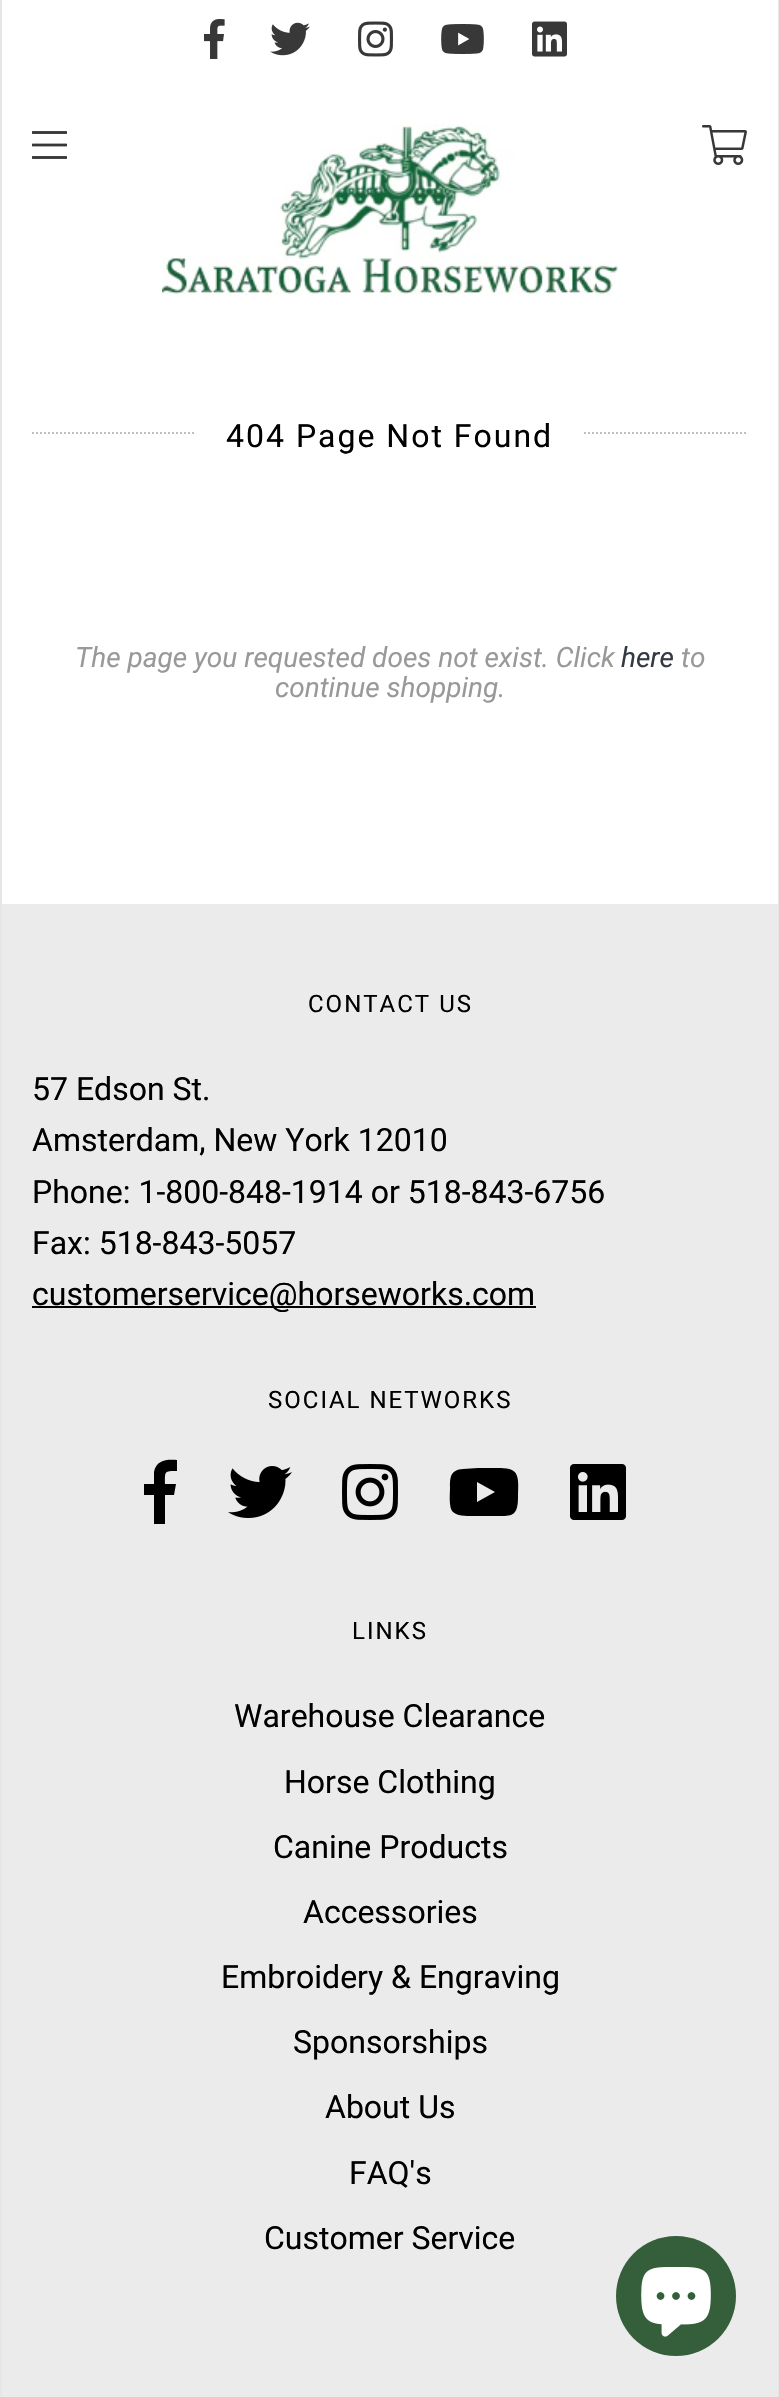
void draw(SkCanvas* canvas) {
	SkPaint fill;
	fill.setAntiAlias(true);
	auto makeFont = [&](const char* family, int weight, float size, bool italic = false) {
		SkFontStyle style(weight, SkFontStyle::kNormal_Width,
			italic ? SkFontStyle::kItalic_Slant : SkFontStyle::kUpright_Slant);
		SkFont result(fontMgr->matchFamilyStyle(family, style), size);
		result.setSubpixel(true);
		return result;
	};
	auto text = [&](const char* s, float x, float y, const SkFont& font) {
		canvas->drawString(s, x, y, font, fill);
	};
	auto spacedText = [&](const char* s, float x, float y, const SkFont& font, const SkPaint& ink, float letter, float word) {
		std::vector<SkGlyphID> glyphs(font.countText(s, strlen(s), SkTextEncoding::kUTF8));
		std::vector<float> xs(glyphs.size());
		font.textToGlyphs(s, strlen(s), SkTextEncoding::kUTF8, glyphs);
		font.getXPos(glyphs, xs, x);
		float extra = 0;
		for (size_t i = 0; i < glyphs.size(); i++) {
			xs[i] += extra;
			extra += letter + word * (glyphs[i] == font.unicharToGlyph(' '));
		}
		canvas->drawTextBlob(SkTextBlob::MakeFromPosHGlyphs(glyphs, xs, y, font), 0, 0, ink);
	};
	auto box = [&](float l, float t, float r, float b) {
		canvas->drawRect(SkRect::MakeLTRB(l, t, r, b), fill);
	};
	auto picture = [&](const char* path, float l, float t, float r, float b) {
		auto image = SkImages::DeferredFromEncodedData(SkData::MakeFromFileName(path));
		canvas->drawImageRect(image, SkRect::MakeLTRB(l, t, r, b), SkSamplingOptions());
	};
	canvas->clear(0xFFFFFFFF);
	fill.setColor(0xFFE6E6E6);
	box(778, 0, 779, 2397);
	box(0, 0, 2, 2397);
	picture("image0.png", 204, 19, 225, 59);
	picture("image1.png", 270, 22, 310, 56);
	picture("image2.png", 358, 21, 393, 57);
	picture("image3.png", 441, 24, 484, 54);
	picture("image4.png", 532, 21, 567, 57);
	picture("image5.png", 32, 131, 67, 159);
	picture("image6.png", 162, 124, 618, 296);
	picture("image7.png", 702, 125, 747, 165);
	fill.setStyle(SkPaint::kStroke_Style);
	fill.setStrokeWidth(2);
	fill.setColor(0xFFBFBFBF);
	fill.setPathEffect(SkDashPathEffect::Make({{2, 2}}, 0));
	canvas->drawPath(SkPathBuilder().moveTo(32, 433).lineTo(748, 433).detach(), fill);
	fill.setPathEffect(nullptr);
	fill.setStyle(SkPaint::kFill_Style);
	fill.setColor(0xFFFFFFFF);
	box(196, 432, 582, 434);
	fill.setColor(0xFFEBEBEB);
	box(2, 904, 778, 2397);
	fill.setColor(0xFF000000);
	box(32, 1306, 536, 1308);
	canvas->drawPath(SkPathBuilder().moveTo(154, 1524).lineTo(154, 1495).lineTo(144, 1495).lineTo(144, 1484).lineTo(154, 1484).lineTo(154, 1472).cubicTo(156, 1460, 167, 1459, 177, 1460).lineTo(177, 1471).cubicTo(164, 1471, 165, 1471, 165, 1484).lineTo(176, 1484).lineTo(174, 1495).lineTo(165, 1495).lineTo(165, 1524).close().detach(), fill);
	picture("image8.png", 228, 1466, 292, 1518);
	picture("image9.png", 342, 1464, 398, 1520);
	canvas->drawPath(SkPathBuilder().moveTo(517, 1476).cubicTo(515, 1468, 505, 1468, 498, 1468).lineTo(478, 1468).lineTo(463, 1469).cubicTo(451, 1470, 450, 1476, 450, 1487).cubicTo(450, 1494, 449, 1502, 451, 1509).cubicTo(454, 1517, 468, 1516, 475, 1516).lineTo(492, 1516).cubicTo(511, 1516, 518, 1518, 518, 1497).cubicTo(518, 1490, 519, 1482, 517, 1476).close().moveTo(477, 1502).lineTo(477, 1482).lineTo(495, 1492).close().detach(), fill);
	picture("image10.png", 570, 1464, 626, 1520);
	fill.setColor(0xFF355E3B);
	canvas->drawCircle(676, 2296, 60, fill);
	picture("image11.png", 641, 2267, 711, 2337);
	auto font1 = makeFont("Roboto", 400, 32);
	fill.setColor(0xFF000000);
	spacedText("404 Page Not Found", 226, 447, font1, fill, 2, 0);
	auto font2 = makeFont("Roboto", 400, 28, true);
	fill.setColor(0xFF999999);
	text("The page you requested does not exist. Click", 75, 667, font2);
	fill.setColor(0xFF343944);
	text("here", 621, 667, font2);
	fill.setColor(0xFF999999);
	text("to", 681, 667, font2);
	text("continue shopping.", 275, 697, font2);
	auto font3 = makeFont("Roboto", 400, 24);
	fill.setColor(0xFF000000);
	spacedText("CONTACT US", 308, 1012, font3, fill, 2, 0);
	text("57 Edson St.", 32, 1100, font1);
	text("Amsterdam, New York 12010", 32, 1151, font1);
	text("Phone: 1-800-848-1914 or 518-843-6756", 32, 1203, font1);
	text("Fax: 518-843-5057", 32, 1254, font1);
	text("customerservice@horseworks.com", 32, 1305, font1);
	spacedText("SOCIAL NETWORKS", 268, 1408, font3, fill, 2, 0);
	spacedText("LINKS", 352, 1639, font3, fill, 2, 0);
	text("Warehouse Clearance", 234, 1727, font1);
	text("Horse Clothing", 284, 1793, font1);
	text("Canine Products", 273, 1858, font1);
	text("Accessories", 303, 1923, font1);
	text("Embroidery & Engraving", 221, 1988, font1);
	text("Sponsorships", 293, 2053, font1);
	text("About Us", 325, 2118, font1);
	text("FAQ's", 349, 2184, font1);
	text("Customer Service", 264, 2249, font1);
}
